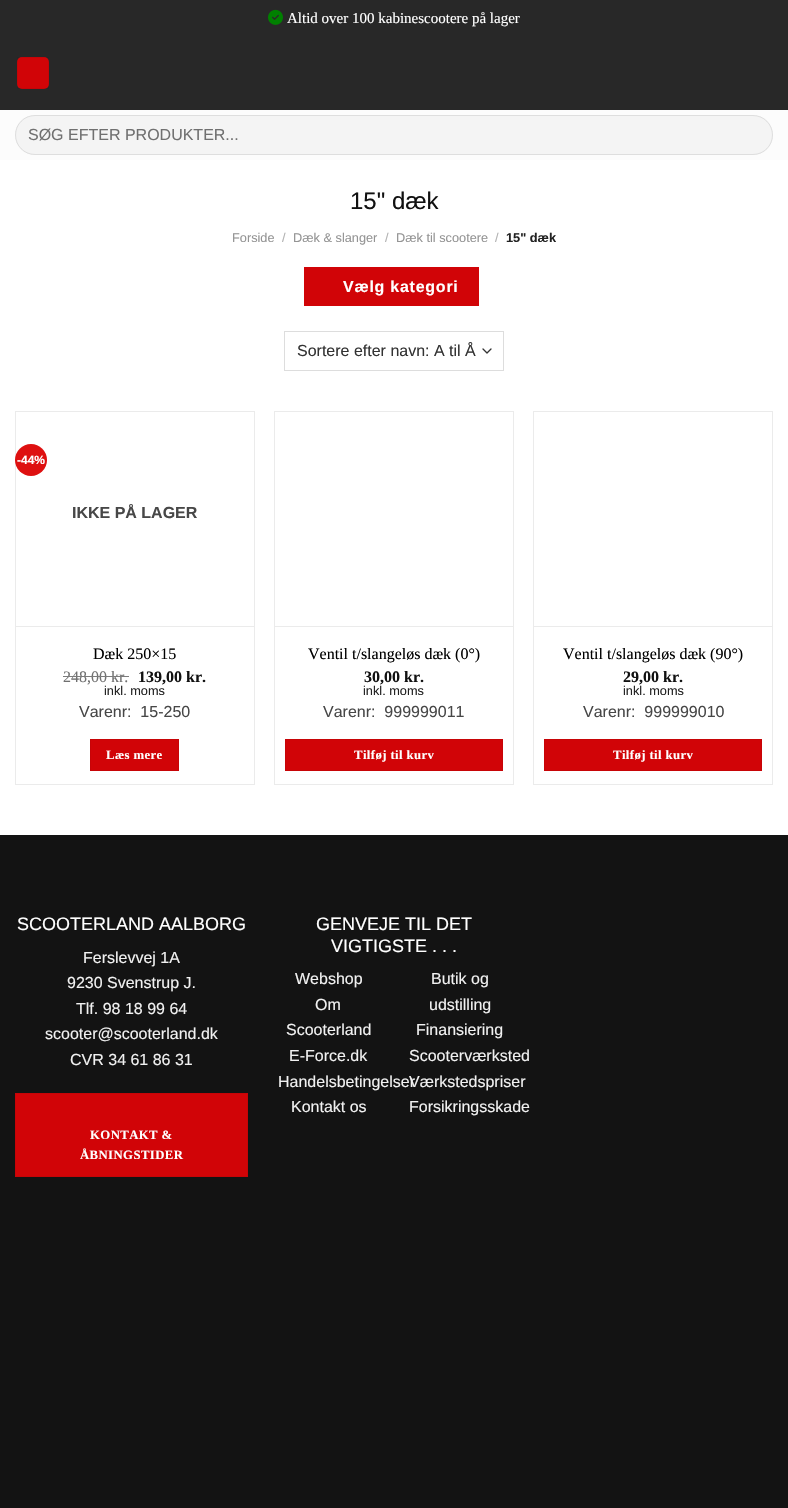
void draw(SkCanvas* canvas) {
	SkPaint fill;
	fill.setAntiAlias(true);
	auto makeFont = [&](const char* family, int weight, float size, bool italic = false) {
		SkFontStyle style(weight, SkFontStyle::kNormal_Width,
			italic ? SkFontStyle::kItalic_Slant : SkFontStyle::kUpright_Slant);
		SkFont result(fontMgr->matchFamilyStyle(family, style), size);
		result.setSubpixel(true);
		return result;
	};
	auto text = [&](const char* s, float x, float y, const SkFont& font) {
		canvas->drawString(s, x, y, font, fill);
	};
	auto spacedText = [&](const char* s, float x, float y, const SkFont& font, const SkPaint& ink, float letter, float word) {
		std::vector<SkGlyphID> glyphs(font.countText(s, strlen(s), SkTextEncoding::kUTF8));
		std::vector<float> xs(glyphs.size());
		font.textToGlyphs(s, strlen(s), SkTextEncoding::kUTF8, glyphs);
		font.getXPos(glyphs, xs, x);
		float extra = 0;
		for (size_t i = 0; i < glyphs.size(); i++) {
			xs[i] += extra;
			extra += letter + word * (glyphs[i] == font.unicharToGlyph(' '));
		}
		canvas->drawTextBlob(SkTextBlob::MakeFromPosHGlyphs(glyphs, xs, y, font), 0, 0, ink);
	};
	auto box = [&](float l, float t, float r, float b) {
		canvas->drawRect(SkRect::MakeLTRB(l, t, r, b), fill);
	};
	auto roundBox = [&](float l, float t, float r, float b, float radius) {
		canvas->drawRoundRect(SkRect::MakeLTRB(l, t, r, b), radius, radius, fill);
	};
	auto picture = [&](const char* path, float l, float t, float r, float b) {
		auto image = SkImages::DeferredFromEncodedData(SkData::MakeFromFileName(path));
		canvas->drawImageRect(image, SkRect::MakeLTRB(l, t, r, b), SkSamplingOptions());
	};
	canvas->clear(0xFFFFFFFF);
	fill.setColor(0xFF282828);
	box(0, 0, 788, 110);
	picture("image0.png", 268, 9, 283, 25);
	fill.setColor(0xFFD10407);
	roundBox(17, 57, 49, 89, 5);
	fill.setStyle(SkPaint::kStroke_Style);
	fill.setStrokeWidth(1);
	fill.setColor(0x0D000000);
	canvas->drawRect(SkRect::MakeLTRB(17.5f, 57.5f, 48.5f, 88.5f), fill);
	fill.setStyle(SkPaint::kFill_Style);
	fill.setColor(0xFFFCFCFC);
	box(0, 110, 788, 160);
	fill.setColor(0xFFF4F4F4);
	roundBox(15, 115, 773, 155, 20);
	fill.setStyle(SkPaint::kStroke_Style);
	fill.setColor(0x17000000);
	canvas->drawRoundRect(SkRect::MakeLTRB(15.5f, 115.5f, 772.5f, 154.5f), 19.5f, 19.5f, fill);
	fill.setStyle(SkPaint::kFill_Style);
	fill.setColor(0xFFD10407);
	box(304, 267, 479, 306);
	fill.setStyle(SkPaint::kStroke_Style);
	fill.setStrokeWidth(1.3f);
	fill.setStrokeCap(SkPaint::kRound_Cap);
	fill.setStrokeJoin(SkPaint::kRound_Join);
	fill.setColor(0xFF333333);
	canvas->drawPath(SkPathBuilder().moveTo(483, 349).lineTo(487, 353).lineTo(491, 349).detach(), fill);
	fill.setStrokeWidth(1);
	fill.setStrokeCap(SkPaint::kButt_Cap);
	fill.setStrokeJoin(SkPaint::kMiter_Join);
	fill.setColor(0xFFDDDDDD);
	canvas->drawRect(SkRect::MakeLTRB(284.5f, 331.5f, 503.5f, 370.5f), fill);
	fill.setColor(0xFFEBEBEB);
	canvas->drawRect(SkRect::MakeLTRB(15.5f, 411.5f, 254.5f, 784.5f), fill);
	fill.setStyle(SkPaint::kFill_Style);
	fill.setColor(0xFFDE1010);
	canvas->drawCircle(31, 460, 16, fill);
	fill.setColor(0xFFEBEBEB);
	box(16, 626, 254, 627);
	fill.setColor(0xFFD10407);
	canvas->drawRect(SkRect::MakeLTRB(90.5f, 739.5f, 178.5f, 770.5f), fill);
	fill.setStyle(SkPaint::kStroke_Style);
	fill.setColor(0xFFC70407);
	canvas->drawRect(SkRect::MakeLTRB(90.5f, 739.5f, 178.5f, 770.5f), fill);
	fill.setColor(0xFFEBEBEB);
	canvas->drawRect(SkRect::MakeLTRB(274.5f, 411.5f, 513.5f, 784.5f), fill);
	fill.setStyle(SkPaint::kFill_Style);
	box(275, 626, 513, 627);
	fill.setColor(0xFFD10407);
	canvas->drawRect(SkRect::MakeLTRB(285.5f, 739.5f, 502.5f, 770.5f), fill);
	fill.setStyle(SkPaint::kStroke_Style);
	fill.setColor(0xFFC70407);
	canvas->drawRect(SkRect::MakeLTRB(285.5f, 739.5f, 502.5f, 770.5f), fill);
	fill.setColor(0xFFEBEBEB);
	canvas->drawRect(SkRect::MakeLTRB(533.5f, 411.5f, 772.5f, 784.5f), fill);
	fill.setStyle(SkPaint::kFill_Style);
	box(534, 626, 772, 627);
	fill.setColor(0xFFD10407);
	canvas->drawRect(SkRect::MakeLTRB(544.5f, 739.5f, 761.5f, 770.5f), fill);
	fill.setStyle(SkPaint::kStroke_Style);
	fill.setColor(0xFFC70407);
	canvas->drawRect(SkRect::MakeLTRB(544.5f, 739.5f, 761.5f, 770.5f), fill);
	fill.setStyle(SkPaint::kFill_Style);
	fill.setColor(0xFF131313);
	box(0, 835, 788, 1508);
	fill.setColor(0xFFD10407);
	canvas->drawRect(SkRect::MakeLTRB(15.5f, 1093.5f, 247.5f, 1176.5f), fill);
	fill.setStyle(SkPaint::kStroke_Style);
	fill.setColor(0xFFC70407);
	canvas->drawRect(SkRect::MakeLTRB(15.5f, 1093.5f, 247.5f, 1176.5f), fill);
	auto font1 = makeFont("Liberation Serif", 400, 15);
	fill.setStyle(SkPaint::kFill_Style);
	fill.setColor(0xFFFFFFFF);
	text("Altid over 100 kabinescootere på lager", 287, 23, font1);
	auto font2 = makeFont("Liberation Sans", 400, 16);
	fill.setColor(0xFF707070);
	text("SØG EFTER PRODUKTER...", 28, 140, font2);
	auto font3 = makeFont("Liberation Sans", 400, 24);
	fill.setColor(0xFF111111);
	text("15\" dæk", 350, 209, font3);
	auto font4 = makeFont("Liberation Sans", 400, 12.75f);
	fill.setColor(0xFF949494);
	text("Forside", 232, 242, font4);
	fill.setColor(0xFFB2B2B2);
	text("/", 282, 242, font4);
	fill.setColor(0xFF949494);
	text("Dæk & slanger", 293, 242, font4);
	fill.setColor(0xFFB2B2B2);
	text("/", 385, 242, font4);
	fill.setColor(0xFF949494);
	text("Dæk til scootere", 396, 242, font4);
	fill.setColor(0xFFB2B2B2);
	text("/", 495, 242, font4);
	auto font5 = makeFont("Liberation Sans", 700, 12.75f);
	fill.setColor(0xFF222222);
	text("15\" dæk", 506, 242, font5);
	auto font6 = makeFont("Liberation Sans", 700, 16);
	fill.setColor(0xFFFFFFFF);
	spacedText("Vælg kategori", 343, 292, font6, fill, 0.75f, 0);
	fill.setColor(0xFF333333);
	text("Sortere efter navn: A til Å", 297, 356, font2);
	auto font7 = makeFont("Liberation Sans", 700, 12);
	fill.setColor(0xFFFFFFFF);
	text("-44%", 17, 464, font7);
	fill.setColor(0xFF474747);
	text("IKKE PÅ LAGER", 72, 518, font6);
	auto font8 = makeFont("Liberation Serif", 400, 16);
	fill.setColor(0xFF000000);
	text("Dæk 250×15", 93, 659, font8);
	fill.setColor(0xFF707070);
	text("248,00 kr.", 63, 682, font8);
	fill.setColor(0xFF7B7B7B);
	box(63, 676, 129, 677);
	auto font9 = makeFont("Liberation Serif", 700, 16);
	fill.setColor(0xFF111111);
	text("139,00 kr.", 138, 682, font9);
	fill.setColor(0xFF222222);
	text("inkl. moms", 104, 695, font4);
	fill.setColor(0xFF474747);
	text("Varenr:  15-250", 79, 717, font2);
	auto font10 = makeFont("Liberation Serif", 700, 12.75f);
	fill.setColor(0xFFFFFFFF);
	spacedText("Læs mere", 106, 759, font10, fill, 0.4f, 0);
	fill.setColor(0xFF000000);
	text("Ventil t/slangeløs dæk (0°)", 308, 659, font8);
	fill.setColor(0xFF111111);
	text("30,00 kr.", 364, 682, font9);
	fill.setColor(0xFF222222);
	text("inkl. moms", 363, 695, font4);
	fill.setColor(0xFF474747);
	text("Varenr:  999999011", 323, 717, font2);
	fill.setColor(0xFFFFFFFF);
	spacedText("Tilføj til kurv", 354, 759, font10, fill, 0.4f, 0);
	fill.setColor(0xFF000000);
	text("Ventil t/slangeløs dæk (90°)", 563, 659, font8);
	fill.setColor(0xFF111111);
	text("29,00 kr.", 623, 682, font9);
	fill.setColor(0xFF222222);
	text("inkl. moms", 623, 695, font4);
	fill.setColor(0xFF474747);
	text("Varenr:  999999010", 583, 717, font2);
	fill.setColor(0xFFFFFFFF);
	spacedText("Tilføj til kurv", 613, 759, font10, fill, 0.4f, 0);
	auto font11 = makeFont("Liberation Sans", 400, 18);
	text("SCOOTERLAND AALBORG", 17, 930, font11);
	fill.setColor(0xFFF1F1F1);
	text("Ferslevvej 1A", 83, 963, font2);
	text("9230 Svenstrup J.", 67, 988, font2);
	text("Tlf. 98 18 99 64", 76, 1014, font2);
	text("scooter@scooterland.dk", 45, 1039, font2);
	text("CVR 34 61 86 31", 70, 1065, font2);
	fill.setColor(0xFFFFFFFF);
	spacedText("KONTAKT &", 90, 1139, font10, fill, 0.4f, 0);
	spacedText("ÅBNINGSTIDER", 80, 1159, font10, fill, 0.4f, 0);
	text("GENVEJE TIL DET", 316, 930, font11);
	text("VIGTIGSTE . . .", 331, 952, font11);
	fill.setColor(0xFFF1F1F1);
	text("Webshop", 295, 984, font2);
	text("Om", 315, 1010, font2);
	text("Scooterland", 286, 1035, font2);
	text("E-Force.dk", 289, 1061, font2);
	text("Handelsbetingelser", 278, 1087, font2);
	text("Kontakt os", 291, 1112, font2);
	text("Butik og", 431, 984, font2);
	text("udstilling", 429, 1010, font2);
	text("Finansiering", 416, 1035, font2);
	text("Scooterværksted", 409, 1061, font2);
	text("Værkstedspriser", 409, 1087, font2);
	text("Forsikringsskade", 409, 1112, font2);
}
